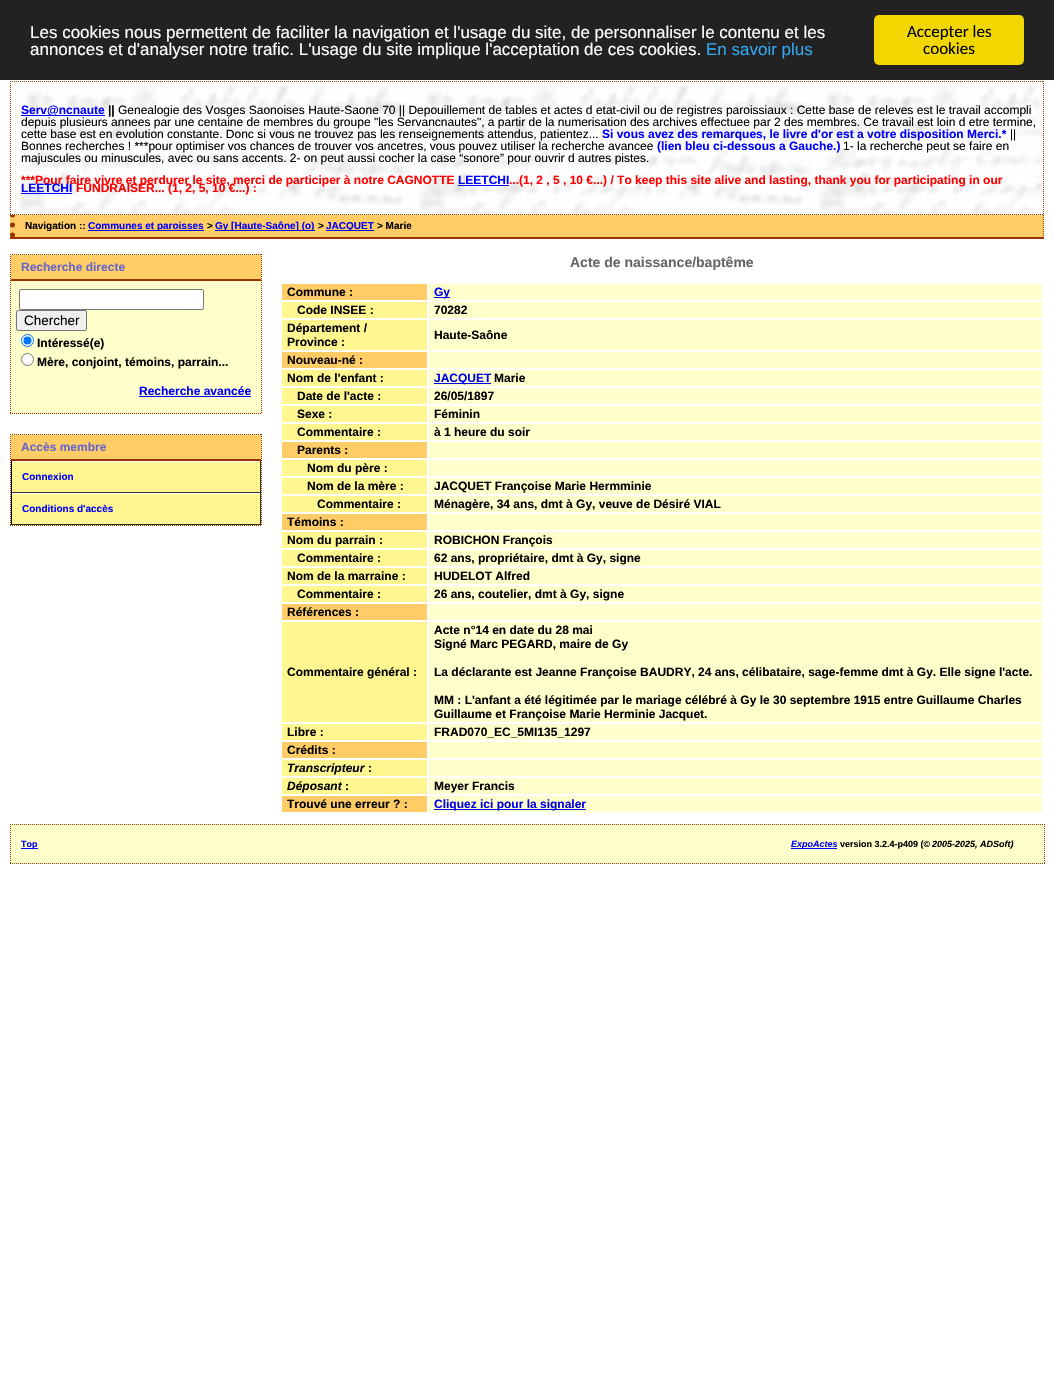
void draw(SkCanvas* canvas) {
	SkPaint fill;
	fill.setAntiAlias(true);
	auto makeFont = [&](const char* family, int weight, float size, bool italic = false) {
		SkFontStyle style(weight, SkFontStyle::kNormal_Width,
			italic ? SkFontStyle::kItalic_Slant : SkFontStyle::kUpright_Slant);
		SkFont result(fontMgr->matchFamilyStyle(family, style), size);
		result.setSubpixel(true);
		return result;
	};
	auto text = [&](const char* s, float x, float y, const SkFont& font) {
		canvas->drawString(s, x, y, font, fill);
	};
	auto box = [&](float l, float t, float r, float b) {
		canvas->drawRect(SkRect::MakeLTRB(l, t, r, b), fill);
	};
	auto roundBox = [&](float l, float t, float r, float b, float radius) {
		canvas->drawRoundRect(SkRect::MakeLTRB(l, t, r, b), radius, radius, fill);
	};
	auto picture = [&](const char* path, float l, float t, float r, float b) {
		auto image = SkImages::DeferredFromEncodedData(SkData::MakeFromFileName(path));
		canvas->drawImageRect(image, SkRect::MakeLTRB(l, t, r, b), SkSamplingOptions());
	};
	canvas->clear(0xFFFFFFFF);
	fill.setColor(0xFF222222);
	box(0, 0, 1054, 80);
	fill.setColor(0xFFF1D600);
	roundBox(874, 15, 1024, 65, 5);
	fill.setColor(0xFFFFCC66);
	box(10, 215, 1044, 237);
	fill.setStyle(SkPaint::kStroke_Style);
	fill.setStrokeWidth(1);
	fill.setColor(0xFF993300);
	fill.setPathEffect(SkDashPathEffect::Make({{1, 1}}, 0));
	canvas->drawPath(SkPathBuilder().moveTo(1043.5f, 215).lineTo(1043.5f, 239).detach(), fill);
	fill.setPathEffect(nullptr);
	fill.setStyle(SkPaint::kFill_Style);
	box(10, 237, 1044, 239);
	fill.setStyle(SkPaint::kStroke_Style);
	fill.setStrokeWidth(5);
	fill.setStrokeCap(SkPaint::kRound_Cap);
	fill.setPathEffect(SkDashPathEffect::Make({{0, 10}}, 0));
	canvas->drawPath(SkPathBuilder().moveTo(12.5f, 215).lineTo(12.5f, 239).detach(), fill);
	fill.setPathEffect(nullptr);
	picture("image0.png", 10, 81, 1044, 215);
	fill.setStrokeWidth(1);
	fill.setStrokeCap(SkPaint::kButt_Cap);
	fill.setPathEffect(SkDashPathEffect::Make({{1, 1}}, 0));
	canvas->drawPath(SkPathBuilder().moveTo(10, 81.5f).lineTo(1044, 81.5f).detach(), fill);
	fill.setPathEffect(nullptr);
	fill.setPathEffect(SkDashPathEffect::Make({{1, 1}}, 0));
	canvas->drawPath(SkPathBuilder().moveTo(1043.5f, 81).lineTo(1043.5f, 215).detach(), fill);
	fill.setPathEffect(nullptr);
	fill.setPathEffect(SkDashPathEffect::Make({{1, 1}}, 0));
	canvas->drawPath(SkPathBuilder().moveTo(10, 214.5f).lineTo(1044, 214.5f).detach(), fill);
	fill.setPathEffect(nullptr);
	fill.setPathEffect(SkDashPathEffect::Make({{1, 1}}, 0));
	canvas->drawPath(SkPathBuilder().moveTo(10.5f, 81).lineTo(10.5f, 215).detach(), fill);
	fill.setPathEffect(nullptr);
	fill.setStyle(SkPaint::kFill_Style);
	fill.setColor(0xFF0000FF);
	box(21, 115, 105, 116);
	box(458, 185, 509, 186);
	box(21, 193, 72, 194);
	box(88, 230, 204, 231);
	box(215, 230, 315, 231);
	box(326, 230, 374, 231);
	fill.setColor(0xFFFFFFCC);
	box(10, 254, 262, 414);
	fill.setStyle(SkPaint::kStroke_Style);
	fill.setColor(0xFF993300);
	fill.setPathEffect(SkDashPathEffect::Make({{1, 1}}, 0));
	canvas->drawPath(SkPathBuilder().moveTo(10, 254.5f).lineTo(262, 254.5f).detach(), fill);
	fill.setPathEffect(nullptr);
	fill.setPathEffect(SkDashPathEffect::Make({{1, 1}}, 0));
	canvas->drawPath(SkPathBuilder().moveTo(261.5f, 254).lineTo(261.5f, 414).detach(), fill);
	fill.setPathEffect(nullptr);
	fill.setPathEffect(SkDashPathEffect::Make({{1, 1}}, 0));
	canvas->drawPath(SkPathBuilder().moveTo(10, 413.5f).lineTo(262, 413.5f).detach(), fill);
	fill.setPathEffect(nullptr);
	fill.setPathEffect(SkDashPathEffect::Make({{1, 1}}, 0));
	canvas->drawPath(SkPathBuilder().moveTo(10.5f, 254).lineTo(10.5f, 414).detach(), fill);
	fill.setPathEffect(nullptr);
	fill.setStyle(SkPaint::kFill_Style);
	fill.setColor(0xFFFFCC66);
	box(11, 255, 261, 279);
	fill.setColor(0xFF993300);
	box(11, 279, 261, 281);
	fill.setColor(0xFFFFFFFF);
	canvas->drawRoundRect(SkRect::MakeLTRB(19.5f, 289.5f, 203.5f, 309.5f), 1.5f, 1.5f, fill);
	fill.setStyle(SkPaint::kStroke_Style);
	fill.setColor(0xFF767676);
	canvas->drawRoundRect(SkRect::MakeLTRB(19.5f, 289.5f, 203.5f, 309.5f), 1.5f, 1.5f, fill);
	fill.setStyle(SkPaint::kFill_Style);
	fill.setColor(0xFFEFEFEF);
	canvas->drawRoundRect(SkRect::MakeLTRB(16.5f, 310.5f, 86.5f, 330.5f), 1.5f, 1.5f, fill);
	fill.setStyle(SkPaint::kStroke_Style);
	fill.setColor(0xFF767676);
	canvas->drawRoundRect(SkRect::MakeLTRB(16.5f, 310.5f, 86.5f, 330.5f), 1.5f, 1.5f, fill);
	fill.setStyle(SkPaint::kFill_Style);
	fill.setColor(0xFFFFFFFF);
	canvas->drawCircle(27.5f, 340.5f, 6, fill);
	fill.setStyle(SkPaint::kStroke_Style);
	fill.setColor(0xFF0075FF);
	canvas->drawCircle(27.5f, 340.5f, 6, fill);
	fill.setStyle(SkPaint::kFill_Style);
	canvas->drawCircle(27.5f, 340.5f, 4, fill);
	fill.setColor(0xFFFFFFFF);
	canvas->drawCircle(27.5f, 359.5f, 6, fill);
	fill.setStyle(SkPaint::kStroke_Style);
	fill.setColor(0xFF767676);
	canvas->drawCircle(27.5f, 359.5f, 6, fill);
	fill.setStyle(SkPaint::kFill_Style);
	fill.setColor(0xFF0000FF);
	box(139, 396, 251, 397);
	fill.setColor(0xFFFFFFCC);
	box(10, 434, 262, 526);
	fill.setStyle(SkPaint::kStroke_Style);
	fill.setColor(0xFF993300);
	fill.setPathEffect(SkDashPathEffect::Make({{1, 1}}, 0));
	canvas->drawPath(SkPathBuilder().moveTo(10, 434.5f).lineTo(262, 434.5f).detach(), fill);
	fill.setPathEffect(nullptr);
	fill.setPathEffect(SkDashPathEffect::Make({{1, 1}}, 0));
	canvas->drawPath(SkPathBuilder().moveTo(261.5f, 434).lineTo(261.5f, 526).detach(), fill);
	fill.setPathEffect(nullptr);
	fill.setPathEffect(SkDashPathEffect::Make({{1, 1}}, 0));
	canvas->drawPath(SkPathBuilder().moveTo(10, 525.5f).lineTo(262, 525.5f).detach(), fill);
	fill.setPathEffect(nullptr);
	fill.setPathEffect(SkDashPathEffect::Make({{1, 1}}, 0));
	canvas->drawPath(SkPathBuilder().moveTo(10.5f, 434).lineTo(10.5f, 526).detach(), fill);
	fill.setPathEffect(nullptr);
	fill.setStyle(SkPaint::kFill_Style);
	fill.setColor(0xFFFFCC66);
	box(11, 435, 261, 459);
	fill.setColor(0xFF993300);
	box(11, 459, 261, 461);
	fill.setColor(0xFFFFF68F);
	box(12, 462, 260, 492);
	fill.setColor(0xFFFFFFFF);
	box(11, 461, 261, 462);
	fill.setColor(0xFF333333);
	box(260, 461, 261, 493);
	box(11, 492, 261, 493);
	fill.setColor(0xFF000000);
	box(11, 461, 12, 493);
	fill.setColor(0xFFFFF68F);
	box(12, 494, 260, 524);
	fill.setColor(0xFFFFFFFF);
	box(11, 493, 261, 494);
	fill.setColor(0xFF333333);
	box(260, 493, 261, 525);
	box(11, 524, 261, 525);
	fill.setColor(0xFF000000);
	box(11, 493, 12, 525);
	fill.setColor(0xFFFFCC66);
	box(282, 284, 427, 300);
	fill.setColor(0xFFFFFFCC);
	box(429, 284, 1042, 300);
	fill.setColor(0xFF0000EE);
	box(434, 297, 450, 298);
	fill.setColor(0xFFFFF68F);
	box(282, 302, 427, 318);
	fill.setColor(0xFFFFFFCC);
	box(429, 302, 1042, 318);
	fill.setColor(0xFFFFF68F);
	box(282, 320, 427, 350);
	fill.setColor(0xFFFFFFCC);
	box(429, 320, 1042, 350);
	fill.setColor(0xFFFFCC66);
	box(282, 352, 427, 368);
	fill.setColor(0xFFFFFFCC);
	box(429, 352, 1042, 368);
	fill.setColor(0xFFFFF68F);
	box(282, 370, 427, 386);
	fill.setColor(0xFFFFFFCC);
	box(429, 370, 1042, 386);
	fill.setColor(0xFF0000EE);
	box(434, 383, 491, 384);
	fill.setColor(0xFFFFF68F);
	box(282, 388, 427, 404);
	fill.setColor(0xFFFFFFCC);
	box(429, 388, 1042, 404);
	fill.setColor(0xFFFFF68F);
	box(282, 406, 427, 422);
	fill.setColor(0xFFFFFFCC);
	box(429, 406, 1042, 422);
	fill.setColor(0xFFFFF68F);
	box(282, 424, 427, 440);
	fill.setColor(0xFFFFFFCC);
	box(429, 424, 1042, 440);
	fill.setColor(0xFFFFCC66);
	box(282, 442, 427, 458);
	fill.setColor(0xFFFFFFCC);
	box(429, 442, 1042, 458);
	fill.setColor(0xFFFFF68F);
	box(282, 460, 427, 476);
	fill.setColor(0xFFFFFFCC);
	box(429, 460, 1042, 476);
	fill.setColor(0xFFFFF68F);
	box(282, 478, 427, 494);
	fill.setColor(0xFFFFFFCC);
	box(429, 478, 1042, 494);
	fill.setColor(0xFFFFF68F);
	box(282, 496, 427, 512);
	fill.setColor(0xFFFFFFCC);
	box(429, 496, 1042, 512);
	fill.setColor(0xFFFFCC66);
	box(282, 514, 427, 530);
	fill.setColor(0xFFFFFFCC);
	box(429, 514, 1042, 530);
	fill.setColor(0xFFFFF68F);
	box(282, 532, 427, 548);
	fill.setColor(0xFFFFFFCC);
	box(429, 532, 1042, 548);
	fill.setColor(0xFFFFF68F);
	box(282, 550, 427, 566);
	fill.setColor(0xFFFFFFCC);
	box(429, 550, 1042, 566);
	fill.setColor(0xFFFFF68F);
	box(282, 568, 427, 584);
	fill.setColor(0xFFFFFFCC);
	box(429, 568, 1042, 584);
	fill.setColor(0xFFFFF68F);
	box(282, 586, 427, 602);
	fill.setColor(0xFFFFFFCC);
	box(429, 586, 1042, 602);
	fill.setColor(0xFFFFCC66);
	box(282, 604, 427, 620);
	fill.setColor(0xFFFFFFCC);
	box(429, 604, 1042, 620);
	fill.setColor(0xFFFFF68F);
	box(282, 622, 427, 722);
	fill.setColor(0xFFFFFFCC);
	box(429, 622, 1042, 722);
	fill.setColor(0xFFFFF68F);
	box(282, 724, 427, 740);
	fill.setColor(0xFFFFFFCC);
	box(429, 724, 1042, 740);
	fill.setColor(0xFFFFCC66);
	box(282, 742, 427, 758);
	fill.setColor(0xFFFFFFCC);
	box(429, 742, 1042, 758);
	fill.setColor(0xFFFFF68F);
	box(282, 760, 427, 776);
	fill.setColor(0xFFFFFFCC);
	box(429, 760, 1042, 776);
	fill.setColor(0xFFFFF68F);
	box(282, 778, 427, 794);
	fill.setColor(0xFFFFFFCC);
	box(429, 778, 1042, 794);
	fill.setColor(0xFFFFCC66);
	box(282, 796, 427, 812);
	fill.setColor(0xFFFFFFCC);
	box(429, 796, 1042, 812);
	fill.setColor(0xFF0000EE);
	box(434, 809, 586, 810);
	fill.setColor(0xFFFFFFCC);
	box(10, 824, 1045, 864);
	fill.setStyle(SkPaint::kStroke_Style);
	fill.setColor(0xFF993300);
	fill.setPathEffect(SkDashPathEffect::Make({{1, 1}}, 0));
	canvas->drawPath(SkPathBuilder().moveTo(10, 824.5f).lineTo(1045, 824.5f).detach(), fill);
	fill.setPathEffect(nullptr);
	fill.setPathEffect(SkDashPathEffect::Make({{1, 1}}, 0));
	canvas->drawPath(SkPathBuilder().moveTo(1044.5f, 824).lineTo(1044.5f, 864).detach(), fill);
	fill.setPathEffect(nullptr);
	fill.setPathEffect(SkDashPathEffect::Make({{1, 1}}, 0));
	canvas->drawPath(SkPathBuilder().moveTo(10, 863.5f).lineTo(1045, 863.5f).detach(), fill);
	fill.setPathEffect(nullptr);
	fill.setPathEffect(SkDashPathEffect::Make({{1, 1}}, 0));
	canvas->drawPath(SkPathBuilder().moveTo(10.5f, 824).lineTo(10.5f, 864).detach(), fill);
	fill.setPathEffect(nullptr);
	fill.setStyle(SkPaint::kFill_Style);
	fill.setColor(0xFF0000FF);
	box(21, 848, 38, 849);
	box(791, 848, 837, 849);
	auto font1 = makeFont("Liberation Sans", 400, 17);
	fill.setColor(0xFFFFFFFF);
	text("Les cookies nous permettent de faciliter la navigation et l'usage du site, de personnaliser le contenu et les", 30, 38, font1);
	text("annonces et d'analyser notre trafic. L'usage du site implique l'acceptation de ces cookies.", 30, 55, font1);
	fill.setColor(0xFF31A8F0);
	text("En savoir plus", 706, 55, font1);
	auto font2 = makeFont("Carlito", 400, 17);
	fill.setColor(0xFF000000);
	text("Accepter les", 907, 37, font2);
	text("cookies", 923, 54, font2);
	auto font3 = makeFont("Liberation Sans", 700, 12);
	fill.setColor(0xFF0000FF);
	text("Serv@ncnaute", 21, 114, font3);
	fill.setColor(0xFF000000);
	text("||", 108, 114, font3);
	auto font4 = makeFont("Liberation Sans", 400, 12);
	text("Genealogie des Vosges Saonoises Haute-Saone 70 || Depouillement de tables et actes d etat-civil ou de registres paroissiaux : Cette base de releves est le travail accompli", 118, 114, font4);
	text("depuis plusieurs annees par une centaine de membres du groupe \"les Servancnautes\", a partir de la numerisation des archives effectuee par 2 des membres. Ce travail est loin d etre termine,", 21, 126, font4);
	text("cette base est en evolution constante. Donc si vous ne trouvez pas les renseignements attendus, patientez...", 21, 138, font4);
	fill.setColor(0xFF0000FF);
	text("Si vous avez des remarques, le livre d'or est a votre disposition Merci.*", 602, 138, font3);
	fill.setColor(0xFF000000);
	text("||", 1010, 138, font4);
	text("Bonnes recherches ! ***pour optimiser vos chances de trouver vos ancetres, vous pouvez utiliser la recherche avancee", 21, 150, font4);
	fill.setColor(0xFF0000FF);
	text("(lien bleu ci-dessous a Gauche.)", 657, 150, font3);
	fill.setColor(0xFF000000);
	text("1- la recherche peut se faire en", 843, 150, font4);
	text("majuscules ou minuscules, avec ou sans accents. 2- on peut aussi cocher la case “sonore” pour ouvrir d autres pistes.", 21, 162, font4);
	fill.setColor(0xFFFF0000);
	text("***Pour faire vivre et perdurer le site, merci de participer à notre CAGNOTTE", 21, 184, font3);
	fill.setColor(0xFF0000FF);
	text("LEETCHI", 458, 184, font3);
	fill.setColor(0xFFFF0000);
	text("...(1, 2 , 5 , 10 €...) / To keep this site alive and lasting, thank you for participating in our", 509, 184, font3);
	fill.setColor(0xFF0000FF);
	text("LEETCHI", 21, 192, font3);
	fill.setColor(0xFFFF0000);
	text("FUNDRAISER... (1, 2, 5, 10 €...) :", 76, 192, font3);
	auto font5 = makeFont("Liberation Sans", 700, 10);
	fill.setColor(0xFF000000);
	text("Navigation ::", 25, 229, font5);
	fill.setColor(0xFF0000FF);
	text("Communes et paroisses", 88, 229, font5);
	fill.setColor(0xFF000000);
	text(">", 207, 229, font5);
	fill.setColor(0xFF0000FF);
	text("Gy [Haute-Saône] (o)", 215, 229, font5);
	fill.setColor(0xFF000000);
	text(">", 318, 229, font5);
	fill.setColor(0xFF0000FF);
	text("JACQUET", 326, 229, font5);
	fill.setColor(0xFF000000);
	text("> Marie", 377, 229, font5);
	fill.setColor(0xFF6666CC);
	text("Recherche directe", 21, 271, font3);
	auto font6 = makeFont("Liberation Sans", 400, 13.5f);
	fill.setColor(0xFF000000);
	text("Chercher", 24, 325, font6);
	text("Intéressé(e)", 37, 347, font3);
	text("Mère, conjoint, témoins, parrain...", 37, 366, font3);
	fill.setColor(0xFF0000FF);
	text("Recherche avancée", 139, 395, font3);
	fill.setColor(0xFF6666CC);
	text("Accès membre", 21, 451, font3);
	fill.setColor(0xFF0000FF);
	text("Connexion", 22, 480, font5);
	text("Conditions d'accès", 22, 512, font5);
	auto font7 = makeFont("Liberation Sans", 700, 14);
	fill.setColor(0xFF666666);
	text("Acte de naissance/baptême", 570, 267, font7);
	fill.setColor(0xFF000000);
	text("Commune :", 287, 296, font3);
	fill.setColor(0xFF0000EE);
	text("Gy", 434, 296, font3);
	fill.setColor(0xFF000000);
	text("Code INSEE :", 297, 314, font3);
	text("70282", 434, 314, font3);
	text("Département /", 287, 332, font3);
	text("Province :", 287, 346, font3);
	text("Haute-Saône", 434, 339, font3);
	text("Nouveau-né :", 287, 364, font3);
	text("Nom de l'enfant :", 287, 382, font3);
	fill.setColor(0xFF0000EE);
	text("JACQUET", 434, 382, font3);
	fill.setColor(0xFF000000);
	text("Marie", 494, 382, font3);
	text("Date de l'acte :", 297, 400, font3);
	text("26/05/1897", 434, 400, font3);
	text("Sexe :", 297, 418, font3);
	text("Féminin", 434, 418, font3);
	text("Commentaire :", 297, 436, font3);
	text("à 1 heure du soir", 434, 436, font3);
	text("Parents :", 297, 454, font3);
	text("Nom du père :", 307, 472, font3);
	text("Nom de la mère :", 307, 490, font3);
	text("JACQUET Françoise Marie Hermminie", 434, 490, font3);
	text("Commentaire :", 317, 508, font3);
	text("Ménagère, 34 ans, dmt à Gy, veuve de Désiré VIAL", 434, 508, font3);
	text("Témoins :", 287, 526, font3);
	text("Nom du parrain :", 287, 544, font3);
	text("ROBICHON François", 434, 544, font3);
	text("Commentaire :", 297, 562, font3);
	text("62 ans, propriétaire, dmt à Gy, signe", 434, 562, font3);
	text("Nom de la marraine :", 287, 580, font3);
	text("HUDELOT Alfred", 434, 580, font3);
	text("Commentaire :", 297, 598, font3);
	text("26 ans, coutelier, dmt à Gy, signe", 434, 598, font3);
	text("Références :", 287, 616, font3);
	text("Commentaire général :", 287, 676, font3);
	text("Acte n°14 en date du 28 mai", 434, 634, font3);
	text("Signé Marc PEGARD, maire de Gy", 434, 648, font3);
	text("La déclarante est Jeanne Françoise BAUDRY, 24 ans, célibataire, sage-femme dmt à Gy. Elle signe l'acte.", 434, 676, font3);
	text("MM : L'anfant a été légitimée par le mariage célébré à Gy le 30 septembre 1915 entre Guillaume Charles", 434, 704, font3);
	text("Guillaume et Françoise Marie Herminie Jacquet.", 434, 718, font3);
	text("Libre :", 287, 736, font3);
	text("FRAD070_EC_5MI135_1297", 434, 736, font3);
	text("Crédits :", 287, 754, font3);
	auto font8 = makeFont("Liberation Sans", 700, 12, true);
	text("Transcripteur", 287, 772, font8);
	text(":", 368, 772, font3);
	text("Déposant", 287, 790, font8);
	text(":", 345, 790, font3);
	text("Meyer Francis", 434, 790, font3);
	text("Trouvé une erreur ? :", 287, 808, font3);
	fill.setColor(0xFF0000EE);
	text("Cliquez ici pour la signaler", 434, 808, font3);
	auto font9 = makeFont("Liberation Sans", 700, 9);
	fill.setColor(0xFF0000FF);
	text("Top", 21, 847, font9);
	auto font10 = makeFont("Liberation Sans", 700, 9, true);
	text("ExpoActes", 791, 847, font10);
	fill.setColor(0xFF000000);
	text("version 3.2.4-p409 (©", 840, 847, font9);
	text("2005-2025, ADSoft)", 932, 847, font10);
}
